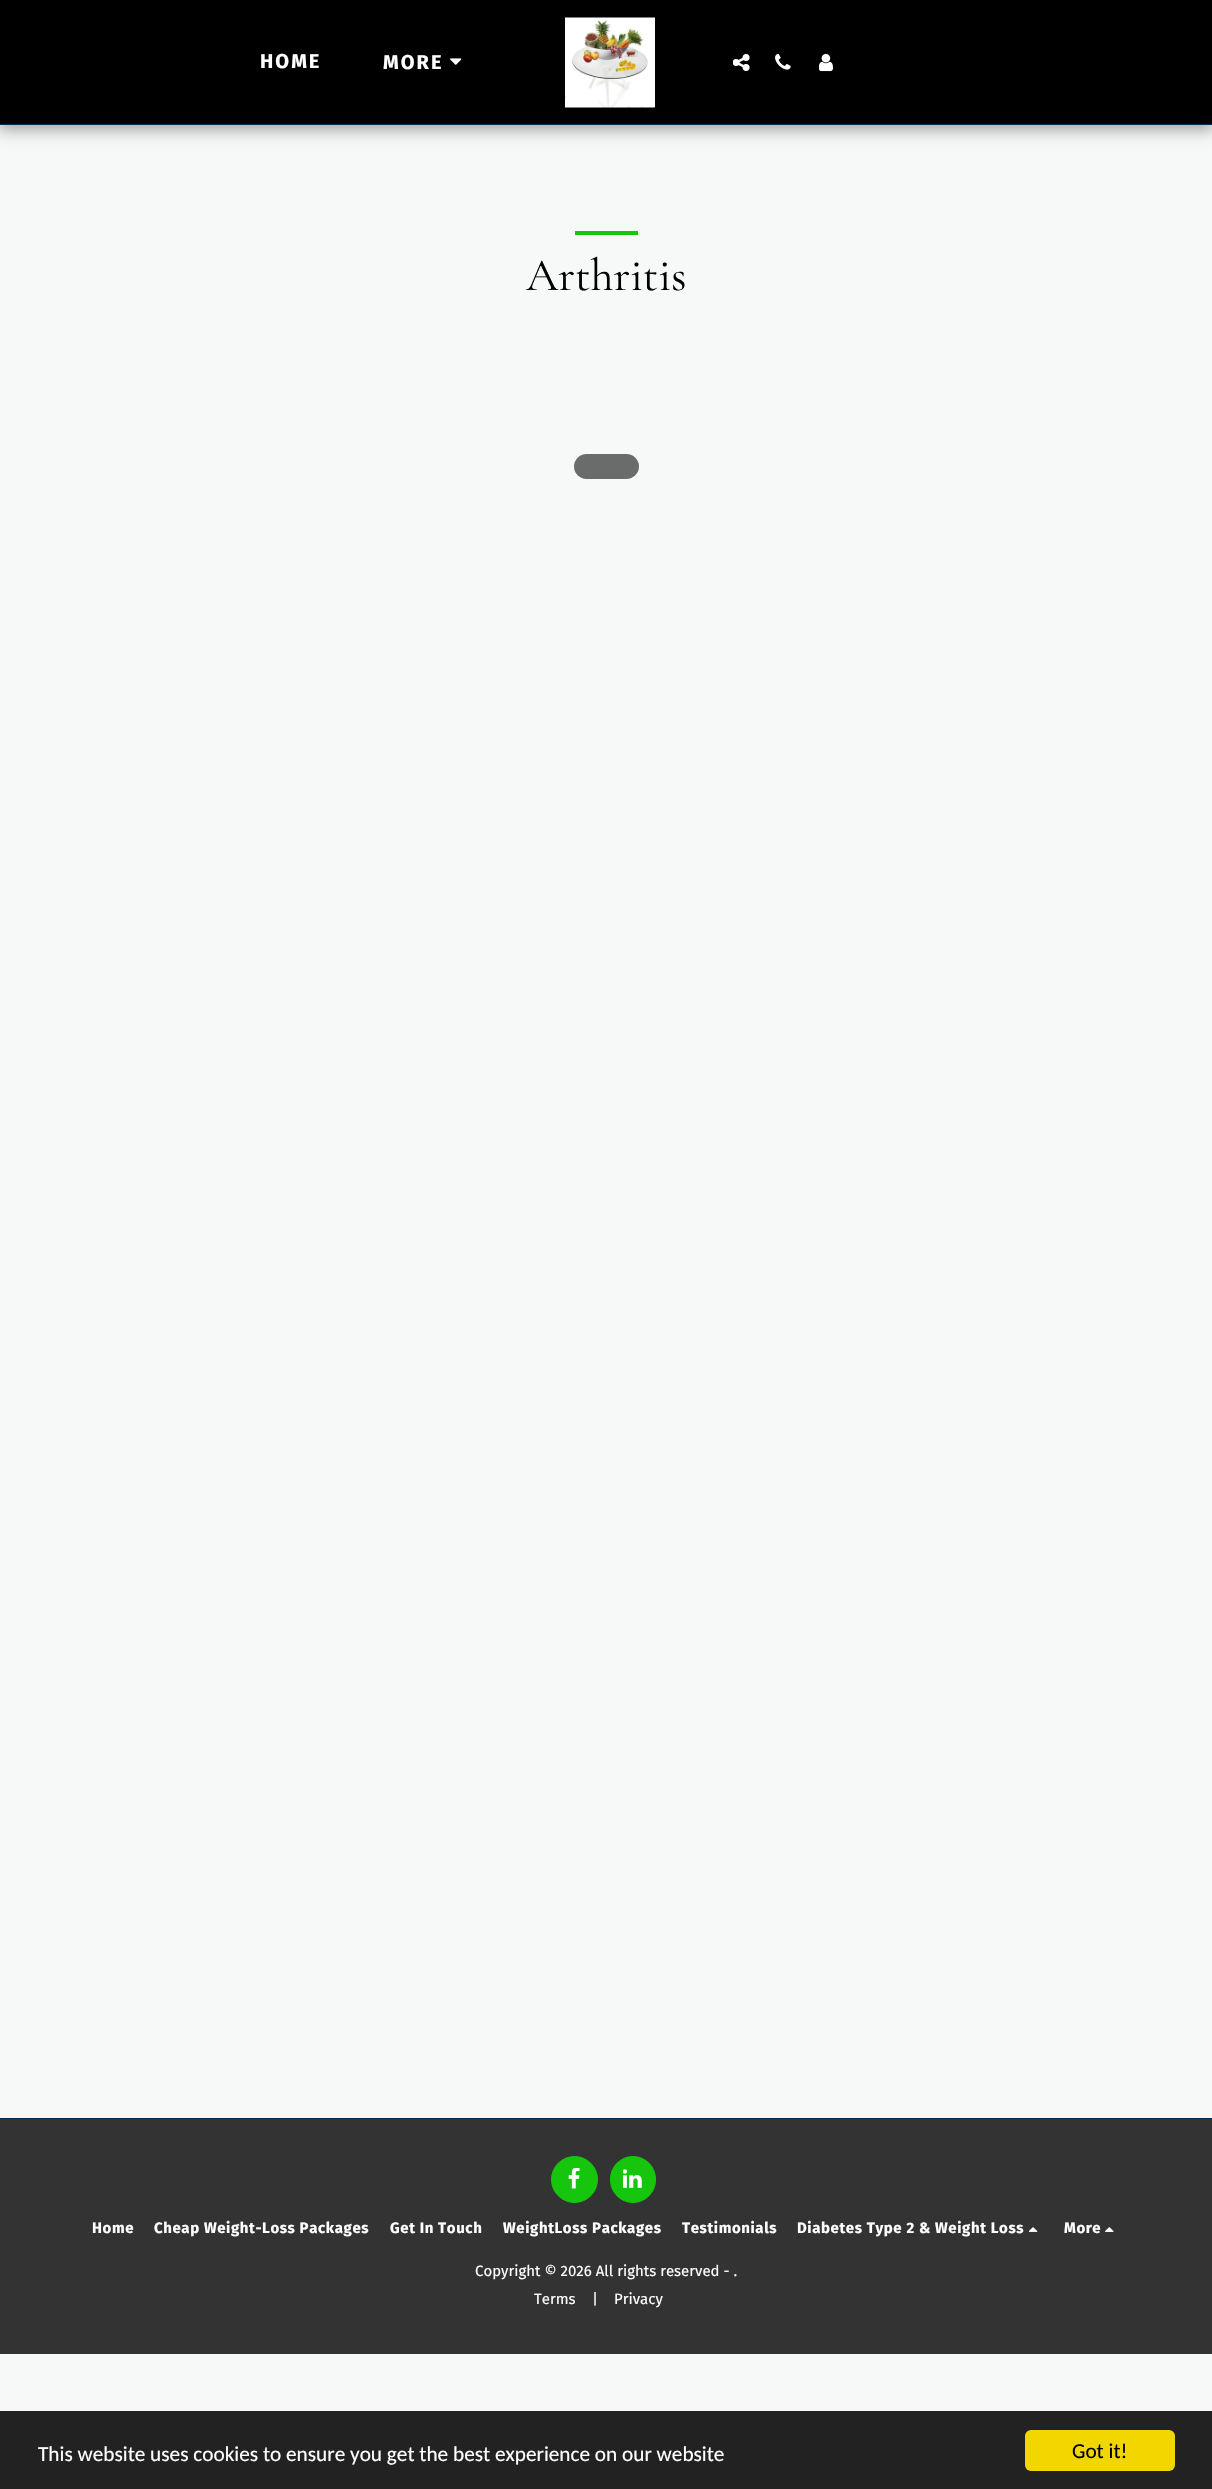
void draw(SkCanvas* canvas) {
	SkPaint fill;
	fill.setAntiAlias(true);
	auto makeFont = [&](const char* family, int weight, float size, bool italic = false) {
		SkFontStyle style(weight, SkFontStyle::kNormal_Width,
			italic ? SkFontStyle::kItalic_Slant : SkFontStyle::kUpright_Slant);
		SkFont result(fontMgr->matchFamilyStyle(family, style), size);
		result.setSubpixel(true);
		return result;
	};
	auto text = [&](const char* s, float x, float y, const SkFont& font) {
		canvas->drawString(s, x, y, font, fill);
	};
	auto spacedText = [&](const char* s, float x, float y, const SkFont& font, const SkPaint& ink, float letter, float word) {
		std::vector<SkGlyphID> glyphs(font.countText(s, strlen(s), SkTextEncoding::kUTF8));
		std::vector<float> xs(glyphs.size());
		font.textToGlyphs(s, strlen(s), SkTextEncoding::kUTF8, glyphs);
		font.getXPos(glyphs, xs, x);
		float extra = 0;
		for (size_t i = 0; i < glyphs.size(); i++) {
			xs[i] += extra;
			extra += letter + word * (glyphs[i] == font.unicharToGlyph(' '));
		}
		canvas->drawTextBlob(SkTextBlob::MakeFromPosHGlyphs(glyphs, xs, y, font), 0, 0, ink);
	};
	auto box = [&](float l, float t, float r, float b) {
		canvas->drawRect(SkRect::MakeLTRB(l, t, r, b), fill);
	};
	auto roundBox = [&](float l, float t, float r, float b, float radius) {
		canvas->drawRoundRect(SkRect::MakeLTRB(l, t, r, b), radius, radius, fill);
	};
	auto picture = [&](const char* path, float l, float t, float r, float b) {
		auto image = SkImages::DeferredFromEncodedData(SkData::MakeFromFileName(path));
		canvas->drawImageRect(image, SkRect::MakeLTRB(l, t, r, b), SkSamplingOptions());
	};
	canvas->clear(0xFFF7F9F8);
	fill.setColor(0x59000000);
	fill.setMaskFilter(SkMaskFilter::MakeBlur(kNormal_SkBlurStyle, 7.5f));
	canvas->drawRect(SkRect::MakeLTRB(-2, 0, 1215, 130), fill);
	fill.setMaskFilter(nullptr);
	fill.setColor(0xFF000000);
	box(0, 0, 1212, 124);
	fill.setColor(0xFF0C2D48);
	box(0, 124, 1212, 125);
	picture("image0.png", 450, 58, 461, 65);
	picture("image1.png", 565, 17, 655, 108);
	picture("image2.png", 733, 54, 750, 71);
	picture("image3.png", 775, 53, 791, 70);
	picture("image4.png", 819, 53, 833, 72);
	fill.setColor(0xFF16C60C);
	box(575, 231, 638, 235);
	fill.setColor(0xFF6A6B6B);
	roundBox(574, 454, 639, 479, 12.5f);
	fill.setColor(0xFF0C2D48);
	box(0, 2118, 1212, 2119);
	fill.setColor(0xFF333333);
	box(0, 2119, 1212, 2354);
	fill.setColor(0xFF16C60C);
	canvas->drawCircle(574.5f, 2179.5f, 23, fill);
	fill.setStyle(SkPaint::kStroke_Style);
	fill.setStrokeWidth(1);
	canvas->drawCircle(574.5f, 2179.5f, 23, fill);
	picture("image5.png", 568, 2168, 580, 2189);
	fill.setStyle(SkPaint::kFill_Style);
	canvas->drawRoundRect(SkRect::MakeLTRB(610.5f, 2156.5f, 655.5f, 2202.5f), 22.5f, 22.5f, fill);
	fill.setStyle(SkPaint::kStroke_Style);
	canvas->drawRoundRect(SkRect::MakeLTRB(610.5f, 2156.5f, 655.5f, 2202.5f), 22.5f, 22.5f, fill);
	picture("image6.png", 623, 2169, 642, 2188);
	picture("image7.png", 1029, 2227, 1038, 2232);
	picture("image8.png", 1105, 2227, 1114, 2232);
	fill.setStyle(SkPaint::kFill_Style);
	fill.setColor(0xFF222222);
	box(0, 2411, 1212, 2489);
	fill.setColor(0xFFF1D600);
	roundBox(1025, 2430, 1175, 2471, 6);
	auto font1 = makeFont("Fira Sans", 700, 20);
	fill.setColor(0xFFFFFFFF);
	spacedText("HOME", 260, 68, font1, fill, 2, 0);
	spacedText("MORE", 383, 69, font1, fill, 2, 0);
	auto font2 = makeFont("Cormorant Garamond", 400, 46);
	fill.setColor(0xFF000000);
	text("Arthritis", 526, 290, font2);
	auto font3 = makeFont("Fira Sans", 700, 15);
	fill.setColor(0xFFFFFFFF);
	spacedText("Home", 92, 2233, font3, fill, 0.6f, 0);
	spacedText("Cheap Weight-Loss Packages", 154, 2233, font3, fill, 0.6f, 0);
	spacedText("Get In Touch", 390, 2233, font3, fill, 0.6f, 0);
	spacedText("WeightLoss Packages", 503, 2233, font3, fill, 0.6f, 0);
	spacedText("Testimonials", 682, 2233, font3, fill, 0.6f, 0);
	spacedText("Diabetes Type 2 & Weight Loss", 797, 2233, font3, fill, 0.6f, 0);
	spacedText("More", 1064, 2233, font3, fill, 0.6f, 0);
	auto font4 = makeFont("Fira Sans", 400, 15);
	text("Copyright © 2026 All rights reserved - .", 475, 2276, font4);
	text("Terms", 534, 2304, font4);
	text("|", 592, 2304, font4);
	text("Privacy", 614, 2304, font4);
	auto font5 = makeFont("Carlito", 400, 21.25f);
	text("This website uses cookies to ensure you get the best experience on our website", 38, 2461, font5);
	fill.setColor(0xFF000000);
	text("Got it!", 1072, 2458, font5);
}
